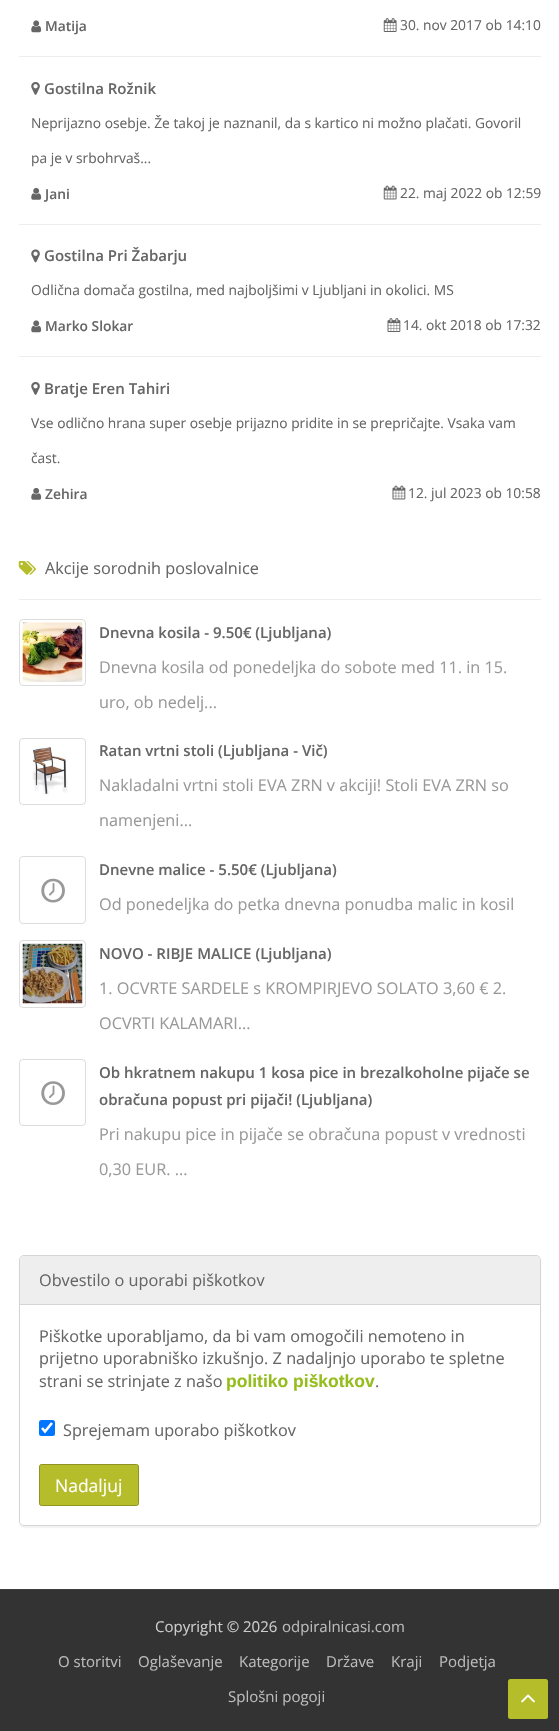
void draw(SkCanvas* canvas) {
	SkPaint fill;
	fill.setAntiAlias(true);
	auto makeFont = [&](const char* family, int weight, float size, bool italic = false) {
		SkFontStyle style(weight, SkFontStyle::kNormal_Width,
			italic ? SkFontStyle::kItalic_Slant : SkFontStyle::kUpright_Slant);
		SkFont result(fontMgr->matchFamilyStyle(family, style), size);
		result.setSubpixel(true);
		return result;
	};
	auto text = [&](const char* s, float x, float y, const SkFont& font) {
		canvas->drawString(s, x, y, font, fill);
	};
	auto box = [&](float l, float t, float r, float b) {
		canvas->drawRect(SkRect::MakeLTRB(l, t, r, b), fill);
	};
	auto roundBox = [&](float l, float t, float r, float b, float radius) {
		canvas->drawRoundRect(SkRect::MakeLTRB(l, t, r, b), radius, radius, fill);
	};
	auto picture = [&](const char* path, float l, float t, float r, float b) {
		auto image = SkImages::DeferredFromEncodedData(SkData::MakeFromFileName(path));
		canvas->drawImageRect(image, SkRect::MakeLTRB(l, t, r, b), SkSamplingOptions());
	};
	canvas->clear(0xFFFFFFFF);
	fill.setColor(0xFFEEEEEE);
	box(19, 56, 541, 57);
	picture("image0.png", 31, 20, 42, 33);
	picture("image1.png", 383, 18, 397, 32);
	box(19, 224, 541, 225);
	picture("image2.png", 31, 82, 40, 95);
	picture("image3.png", 31, 187, 42, 200);
	picture("image4.png", 383, 185, 397, 200);
	box(19, 356, 541, 357);
	picture("image5.png", 31, 249, 40, 263);
	picture("image0.png", 31, 320, 42, 333);
	picture("image6.png", 387, 318, 401, 332);
	picture("image2.png", 31, 382, 40, 395);
	picture("image3.png", 31, 487, 42, 500);
	picture("image7.png", 392, 485, 406, 500);
	box(19, 599, 541, 600);
	picture("image8.png", 18, 561, 36, 575);
	fill.setStyle(SkPaint::kStroke_Style);
	fill.setStrokeWidth(1);
	fill.setColor(0xFFDDDDDD);
	canvas->drawRoundRect(SkRect::MakeLTRB(19.5f, 619.5f, 85.5f, 685.5f), 3.5f, 3.5f, fill);
	picture("image9.png", 22, 622, 83, 682);
	canvas->drawRoundRect(SkRect::MakeLTRB(19.5f, 738.5f, 85.5f, 804.5f), 3.5f, 3.5f, fill);
	picture("image10.png", 32, 741, 68, 795);
	canvas->drawRoundRect(SkRect::MakeLTRB(19.5f, 856.5f, 85.5f, 923.5f), 3.5f, 3.5f, fill);
	picture("image11.png", 41, 878, 65, 903);
	canvas->drawRoundRect(SkRect::MakeLTRB(19.5f, 940.5f, 85.5f, 1007.5f), 3.5f, 3.5f, fill);
	picture("image12.png", 22, 943, 83, 1004);
	canvas->drawRoundRect(SkRect::MakeLTRB(19.5f, 1059.5f, 85.5f, 1125.5f), 3.5f, 3.5f, fill);
	picture("image13.png", 41, 1081, 65, 1105);
	canvas->save();
	canvas->clipPath(SkPathBuilder(SkPathFillType::kEvenOdd).moveTo(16, 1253).lineTo(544, 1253).lineTo(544, 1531).lineTo(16, 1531).close().moveTo(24, 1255).lineTo(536, 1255).cubicTo(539, 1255, 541, 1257, 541, 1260).lineTo(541, 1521).cubicTo(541, 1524, 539, 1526, 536, 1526).lineTo(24, 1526).cubicTo(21, 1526, 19, 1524, 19, 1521).lineTo(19, 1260).cubicTo(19, 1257, 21, 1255, 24, 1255).close().detach(), true);
	fill.setStyle(SkPaint::kFill_Style);
	fill.setColor(0x0D000000);
	fill.setMaskFilter(SkMaskFilter::MakeBlur(kNormal_SkBlurStyle, 0.5f));
	canvas->drawRoundRect(SkRect::MakeLTRB(19, 1256, 541, 1528), 5, 5, fill);
	fill.setMaskFilter(nullptr);
	canvas->restore();
	fill.setStyle(SkPaint::kStroke_Style);
	fill.setColor(0xFFD5D5D5);
	canvas->drawRoundRect(SkRect::MakeLTRB(19.5f, 1255.5f, 540.5f, 1525.5f), 4.5f, 4.5f, fill);
	fill.setStyle(SkPaint::kFill_Style);
	fill.setColor(0xFFEEEEEE);
	canvas->drawPath(SkPathBuilder().moveTo(24, 1256).lineTo(536, 1256).cubicTo(538, 1256, 540, 1258, 540, 1260).lineTo(540, 1305).lineTo(20, 1305).lineTo(20, 1260).cubicTo(20, 1258, 22, 1256, 24, 1256).close().detach(), fill);
	fill.setColor(0xFFD5D5D5);
	box(20, 1304, 540, 1305);
	fill.setColor(0xFF0075FF);
	roundBox(39, 1420, 55, 1436, 2.5f);
	fill.setStyle(SkPaint::kStroke_Style);
	fill.setStrokeWidth(2.6f);
	fill.setColor(0xFFFFFFFF);
	canvas->drawPath(SkPathBuilder().moveTo(42, 1428).lineTo(45, 1431.5f).lineTo(52, 1423).detach(), fill);
	fill.setStyle(SkPaint::kFill_Style);
	fill.setColor(0xFFB6BD2A);
	canvas->drawRoundRect(SkRect::MakeLTRB(39.5f, 1464.5f, 138.5f, 1505.5f), 2, 2, fill);
	fill.setStyle(SkPaint::kStroke_Style);
	fill.setStrokeWidth(1);
	fill.setColor(0xFF8E9321);
	canvas->drawRoundRect(SkRect::MakeLTRB(39.5f, 1464.5f, 138.5f, 1505.5f), 2, 2, fill);
	fill.setStyle(SkPaint::kFill_Style);
	fill.setColor(0xFF333333);
	box(0, 1590, 559, 1731);
	fill.setColor(0xFF3D3D3D);
	box(0, 1589, 559, 1590);
	fill.setColor(0xFFB6BD2A);
	roundBox(508, 1679, 548, 1719, 2.5f);
	picture("image14.png", 521, 1694, 535, 1703);
	auto font1 = makeFont("Open Sans", 600, 13.8f);
	fill.setColor(0xFF666666);
	text("Matija", 45, 31, font1);
	auto font2 = makeFont("Open Sans", 400, 13.8f);
	text("30. nov 2017 ob 14:10", 400, 30, font2);
	auto font3 = makeFont("Open Sans", 600, 15);
	text("Gostilna Rožnik", 44, 94, font3);
	text("Neprijazno osebje. Že takoj je naznanil, da s kartico ni možno plačati. Govoril", 31, 128, font2);
	text("pa je v srbohrvaš...", 31, 163, font2);
	text("Jani", 45, 199, font1);
	text("22. maj 2022 ob 12:59", 400, 198, font2);
	text("Gostilna Pri Žabarju", 44, 261, font3);
	text("Odlična domača gostilna, med najboljšimi v Ljubljani in okolici. MS", 31, 295, font2);
	text("Marko Slokar", 45, 331, font1);
	text("14. okt 2018 ob 17:32", 403, 330, font2);
	text("Bratje Eren Tahiri", 44, 394, font3);
	text("Vse odlično hrana super osebje prijazno pridite in se prepričajte. Vsaka vam", 31, 428, font2);
	text("čast.", 31, 463, font2);
	text("Zehira", 45, 499, font1);
	text("12. jul 2023 ob 10:58", 408, 498, font2);
	auto font4 = makeFont("Open Sans", 400, 16.25f);
	text("Akcije sorodnih poslovalnice", 45, 574, font4);
	text("Dnevna kosila - 9.50€ (Ljubljana)", 99, 638, font3);
	fill.setColor(0xFF999999);
	text("Dnevna kosila od ponedeljka do sobote med 11. in 15.", 99, 673, font4);
	text("uro, ob nedelj...", 99, 708, font4);
	fill.setColor(0xFF666666);
	text("Ratan vrtni stoli (Ljubljana - Vič)", 99, 756, font3);
	fill.setColor(0xFF999999);
	text("Nakladalni vrtni stoli EVA ZRN v akciji! Stoli EVA ZRN so", 99, 791, font4);
	text("namenjeni...", 99, 826, font4);
	fill.setColor(0xFF666666);
	text("Dnevne malice - 5.50€ (Ljubljana)", 99, 875, font3);
	fill.setColor(0xFF999999);
	text("Od ponedeljka do petka dnevna ponudba malic in kosil", 99, 910, font4);
	fill.setColor(0xFF666666);
	text("NOVO - RIBJE MALICE (Ljubljana)", 99, 959, font3);
	fill.setColor(0xFF999999);
	text("1. OCVRTE SARDELE s KROMPIRJEVO SOLATO 3,60 € 2.", 99, 994, font4);
	text("OCVRTI KALAMARI...", 99, 1029, font4);
	fill.setColor(0xFF666666);
	text("Ob hkratnem nakupu 1 kosa pice in brezalkoholne pijače se", 99, 1078, font3);
	text("obračuna popust pri pijači! (Ljubljana)", 99, 1105, font3);
	fill.setColor(0xFF999999);
	text("Pri nakupu pice in pijače se obračuna popust v vrednosti", 99, 1140, font4);
	text("0,30 EUR. ...", 99, 1175, font4);
	fill.setColor(0xFF666666);
	text("Obvestilo o uporabi piškotkov", 39, 1286, font4);
	text("Piškotke uporabljamo, da bi vam omogočili nemoteno in", 39, 1342, font4);
	text("prijetno uporabniško izkušnjo. Z nadaljnjo uporabo te spletne", 39, 1364, font4);
	text("strani se strinjate z našo", 39, 1387, font4);
	auto font5 = makeFont("Liberation Sans", 700, 17.5f);
	fill.setColor(0xFF96BD1E);
	text("politiko piškotkov", 226, 1387, font5);
	fill.setColor(0xFF666666);
	text(".", 375, 1387, font4);
	text("Sprejemam uporabo piškotkov", 63, 1436, font4);
	auto font6 = makeFont("Open Sans", 400, 17.5f);
	fill.setColor(0xFFFFFFFF);
	text("Nadaljuj", 55, 1492, font6);
	auto font7 = makeFont("Open Sans", 400, 15);
	fill.setColor(0xFFCCCCCC);
	text("Copyright © 2026", 155, 1632, font7);
	fill.setColor(0xFFBBBBBB);
	text("odpiralnicasi.com", 282, 1632, font7);
	text("O storitvi", 58, 1667, font7);
	text("Oglaševanje", 138, 1667, font7);
	text("Kategorije", 239, 1667, font7);
	text("Države", 326, 1667, font7);
	text("Kraji", 391, 1667, font7);
	text("Podjetja", 439, 1667, font7);
	text("Splošni pogoji", 228, 1702, font7);
}
